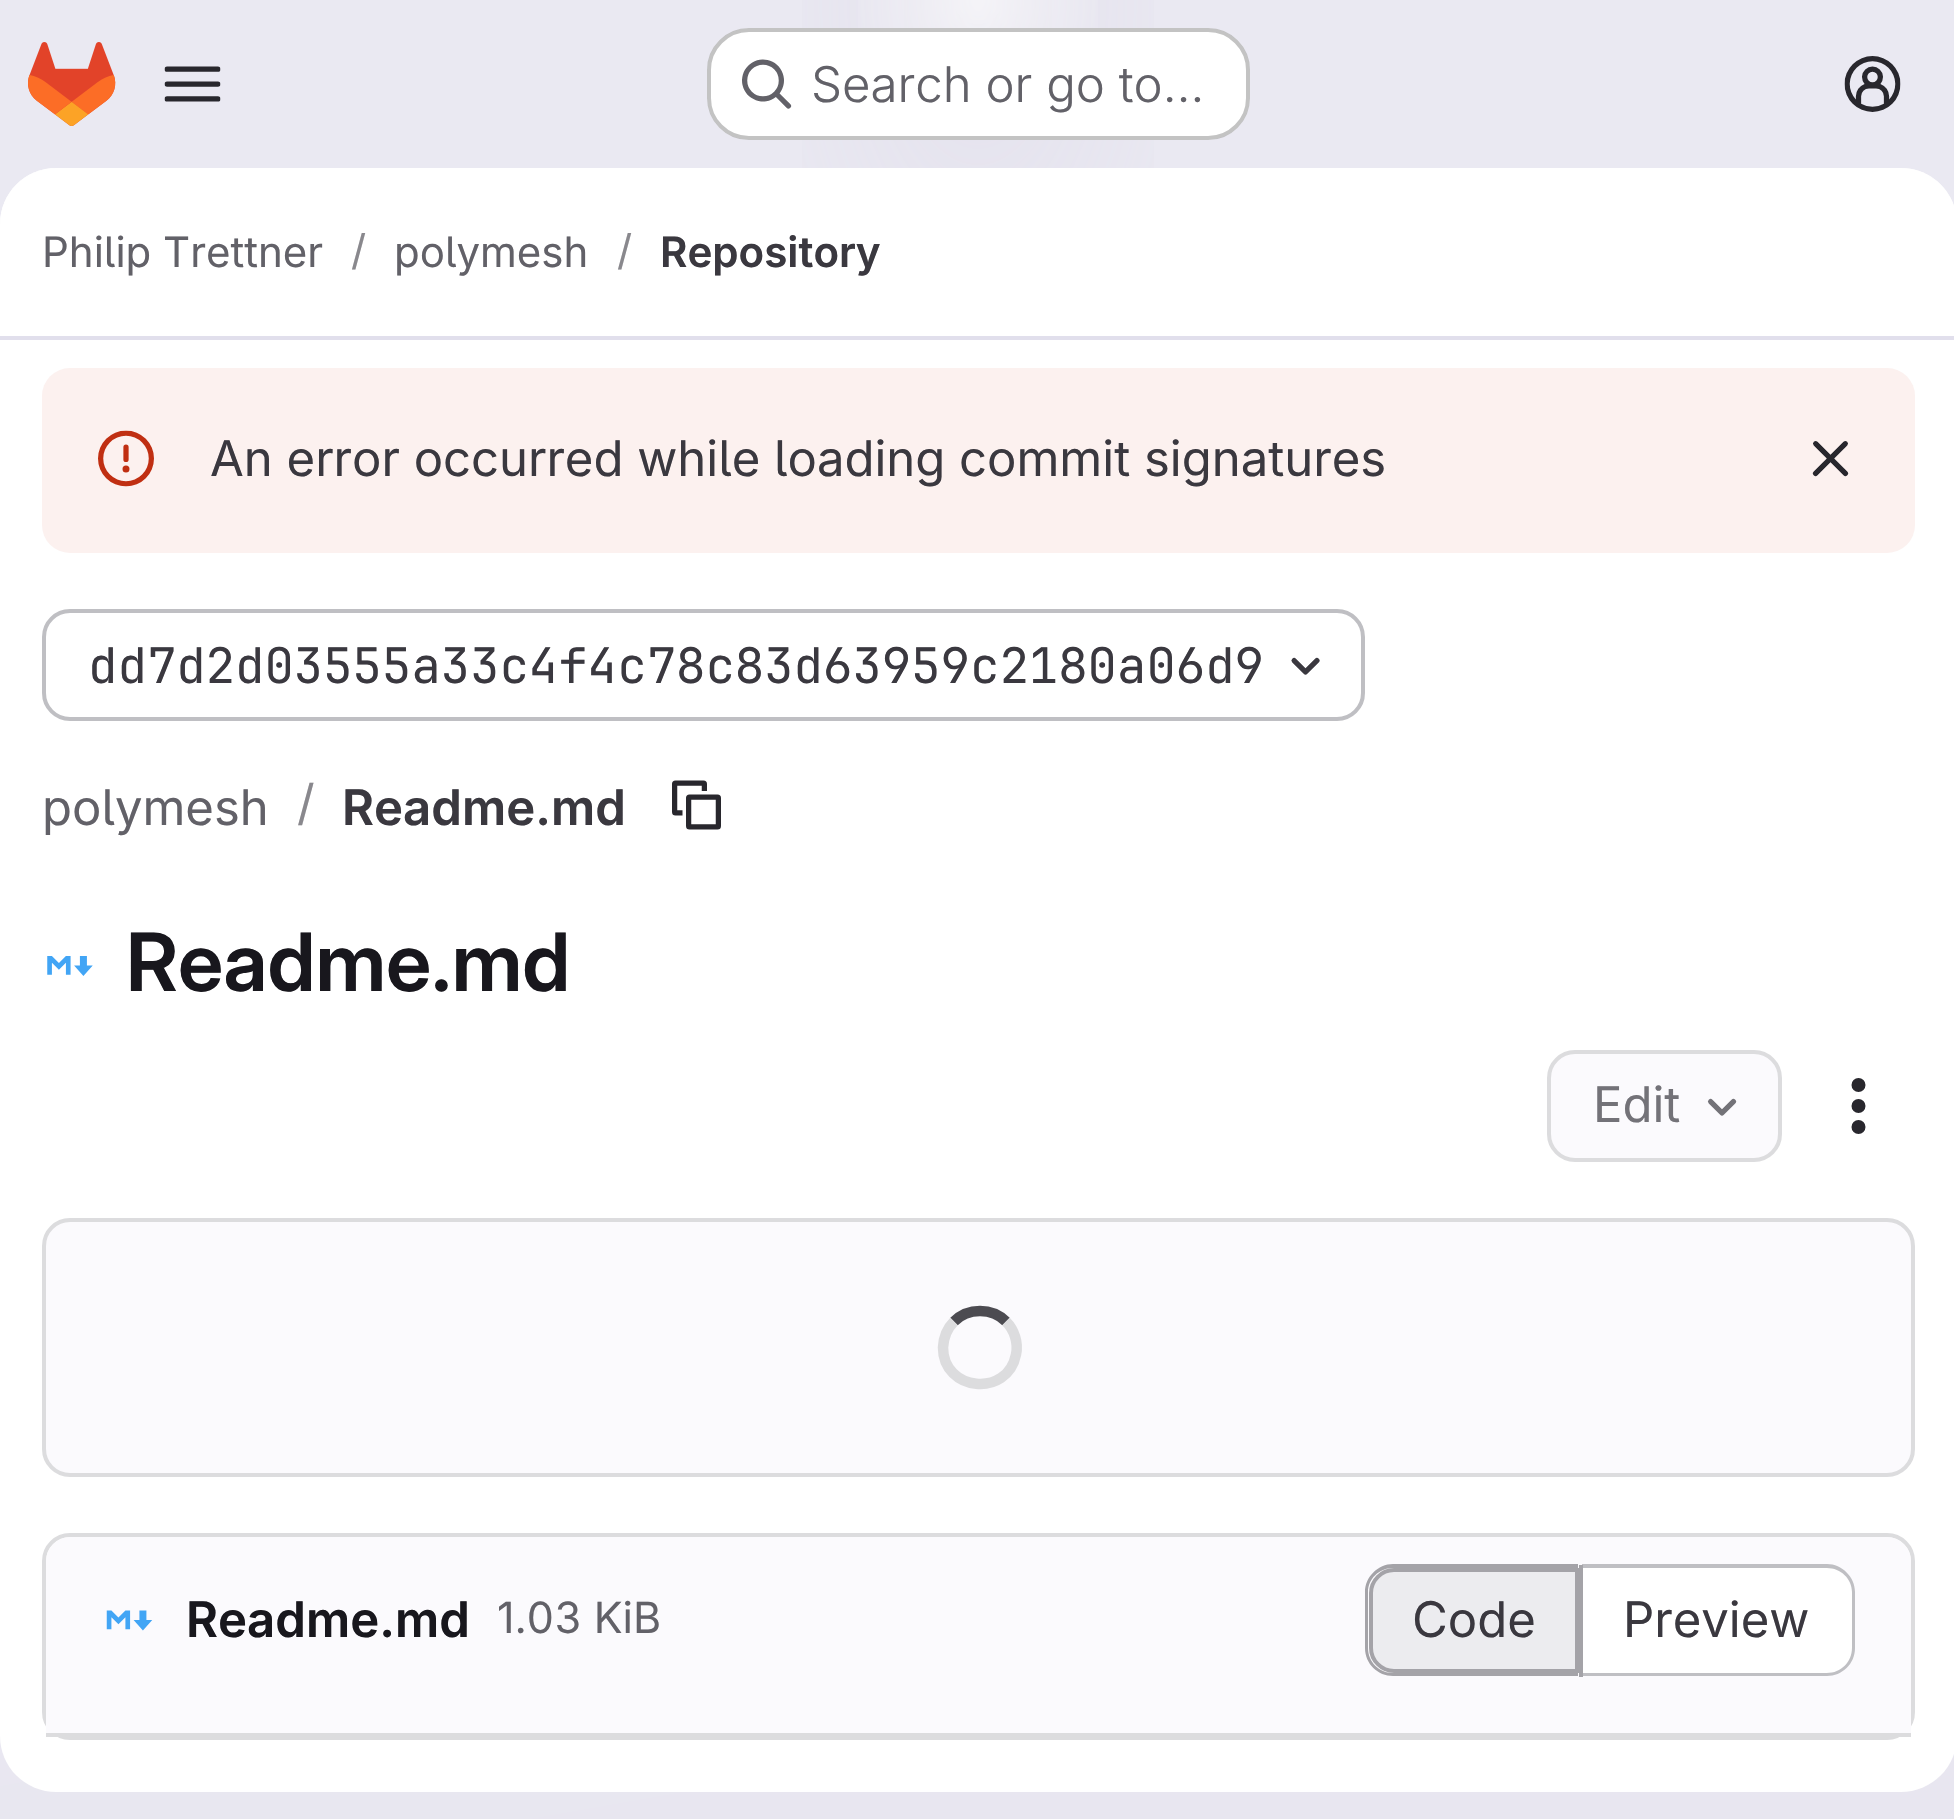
void draw(SkCanvas* canvas) {
	SkPaint fill;
	fill.setAntiAlias(true);
	auto makeFont = [&](const char* family, int weight, float size, bool italic = false) {
		SkFontStyle style(weight, SkFontStyle::kNormal_Width,
			italic ? SkFontStyle::kItalic_Slant : SkFontStyle::kUpright_Slant);
		SkFont result(fontMgr->matchFamilyStyle(family, style), size);
		result.setSubpixel(true);
		return result;
	};
	auto text = [&](const char* s, float x, float y, const SkFont& font) {
		canvas->drawString(s, x, y, font, fill);
	};
	auto box = [&](float l, float t, float r, float b) {
		canvas->drawRect(SkRect::MakeLTRB(l, t, r, b), fill);
	};
	auto roundBox = [&](float l, float t, float r, float b, float radius) {
		canvas->drawRoundRect(SkRect::MakeLTRB(l, t, r, b), radius, radius, fill);
	};
	auto picture = [&](const char* path, float l, float t, float r, float b) {
		auto image = SkImages::DeferredFromEncodedData(SkData::MakeFromFileName(path));
		canvas->drawImageRect(image, SkRect::MakeLTRB(l, t, r, b), SkSamplingOptions());
	};
	canvas->clear(0xFFFFFFFF);
	{
		const SkColor colors[] = {0xFFE8E6F0, 0xFFEAE9F2};
		const float stops[] = {0, 0.7f};
		const SkPoint ends[] = {{1163, 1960}, {793, -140}};
		fill.setShader(SkGradientShader::MakeLinear(ends, colors, stops, 2, SkTileMode::kClamp));
		fill.setAlpha(255);
	}
	box(0, 0, 1954, 1819);
	{
		const SkColor colors[] = {0xFFE4E2ED, 0x00E4E2ED};
		const float stops[] = {0, 0.25f};
		SkMatrix m = SkMatrix::Translate(978, 0).preScale(978, 1820);
		fill.setShader(SkGradientShader::MakeRadial({0, 0}, 1, colors, stops, 2, SkTileMode::kClamp, 0, &m));
		fill.setAlpha(255);
	}
	box(802, 0, 1154, 168);
	{
		const SkColor colors[] = {0xFFE4E2EC, 0x00E4E2EC};
		const float stops[] = {0, 0.18f};
		SkMatrix m = SkMatrix::Translate(978, 0).preScale(978, 1820);
		fill.setShader(SkGradientShader::MakeRadial({0, 0}, 1, colors, stops, 2, SkTileMode::kClamp, 0, &m));
		fill.setAlpha(255);
	}
	box(904, 0, 1052, 137);
	{
		const SkColor colors[] = {0x99FFFFFF, 0x00FFFFFF};
		const float stops[] = {0, 0.07f};
		fill.setShader(SkGradientShader::MakeRadial({978, 0}, 2066, colors, stops, 2, SkTileMode::kClamp));
		fill.setAlpha(255);
	}
	box(858, 0, 1098, 123);
	picture("image0.png", 28, 42, 116, 126);
	picture("image1.png", 164, 66, 221, 102);
	fill.setShader(nullptr);
	fill.setColor(0xFFFFFFFF);
	roundBox(707, 28, 1250, 140, 42);
	fill.setStyle(SkPaint::kStroke_Style);
	fill.setStrokeWidth(4);
	fill.setColor(0x3D050506);
	canvas->drawRoundRect(SkRect::MakeLTRB(709, 30, 1248, 138), 40, 40, fill);
	picture("image2.png", 742, 59, 792, 109);
	picture("image3.png", 1844, 56, 1901, 112);
	fill.setStyle(SkPaint::kFill_Style);
	fill.setColor(0xFFFFFFFF);
	roundBox(0, 168, 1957, 1792, 56);
	canvas->drawPath(SkPathBuilder().moveTo(56, 168).lineTo(1901, 168).cubicTo(1932, 168, 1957, 193, 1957, 224).lineTo(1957, 340).lineTo(0, 340).lineTo(0, 224).cubicTo(0, 193, 25, 168, 56, 168).close().detach(), fill);
	fill.setColor(0xFFE1DFEC);
	box(0, 336, 1954, 340);
	fill.setColor(0xFFFCF1EF);
	roundBox(42, 368, 1915, 553, 28);
	picture("image4.png", 98, 430, 154, 487);
	picture("image5.png", 1812, 441, 1849, 477);
	fill.setStyle(SkPaint::kStroke_Style);
	fill.setColor(0xFFBFBFC3);
	canvas->drawRoundRect(SkRect::MakeLTRB(44, 611, 1363, 719), 26, 26, fill);
	picture("image6.png", 1291, 657, 1320, 675);
	picture("image7.png", 672, 780, 721, 830);
	picture("image8.png", 47, 956, 93, 976);
	fill.setStyle(SkPaint::kFill_Style);
	fill.setColor(0xFFFBFAFD);
	canvas->drawRoundRect(SkRect::MakeLTRB(1549, 1052, 1780, 1160), 26, 26, fill);
	fill.setStyle(SkPaint::kStroke_Style);
	fill.setColor(0xFFDCDCDE);
	canvas->drawRoundRect(SkRect::MakeLTRB(1549, 1052, 1780, 1160), 26, 26, fill);
	picture("image9.png", 1707, 1098, 1737, 1116);
	picture("image10.png", 1851, 1078, 1866, 1134);
	fill.setStyle(SkPaint::kFill_Style);
	fill.setColor(0xFFFBFAFD);
	canvas->drawRoundRect(SkRect::MakeLTRB(44, 1220, 1913, 1475), 26, 26, fill);
	fill.setStyle(SkPaint::kStroke_Style);
	fill.setColor(0xFFDCDCDE);
	canvas->drawRoundRect(SkRect::MakeLTRB(44, 1220, 1913, 1475), 26, 26, fill);
	fill.setStrokeWidth(10.5f);
	fill.setColor(0xFF4C4B51);
	canvas->drawPath(SkPathBuilder().moveTo(954, 1321.5f).cubicTo(968, 1307.5f, 992, 1307.5f, 1006, 1321.5f).detach(), fill);
	fill.setColor(0xFFDCDCDE);
	canvas->drawPath(SkPathBuilder().moveTo(1006, 1321.5f).cubicTo(1014.5f, 1330, 1018.5f, 1343, 1016, 1354.5f).cubicTo(1007.5f, 1398, 943, 1391.5f, 943, 1347.5f).cubicTo(943.5f, 1338, 947, 1328.5f, 954, 1321.5f).detach(), fill);
	fill.setStrokeWidth(4);
	canvas->drawRoundRect(SkRect::MakeLTRB(44, 1535, 1913, 1738), 26, 26, fill);
	fill.setStyle(SkPaint::kFill_Style);
	fill.setColor(0xFFFBFAFD);
	canvas->drawPath(SkPathBuilder().moveTo(71, 1537).lineTo(1886, 1537).cubicTo(1900, 1537, 1911, 1548, 1911, 1562).lineTo(1911, 1736).lineTo(46, 1736).lineTo(46, 1562).cubicTo(46, 1548, 57, 1537, 71, 1537).close().detach(), fill);
	fill.setColor(0xFFDCDCDE);
	box(46, 1733, 1911, 1737);
	picture("image11.png", 106, 1610, 153, 1631);
	fill.setColor(0xFFECECEF);
	canvas->drawPath(SkPathBuilder().moveTo(1394, 1570).lineTo(1577, 1570).lineTo(1577, 1671).lineTo(1394, 1671).cubicTo(1381.5f, 1671, 1371, 1660.5f, 1371, 1648).lineTo(1371, 1593).cubicTo(1371, 1580.5f, 1381.5f, 1570, 1394, 1570).close().detach(), fill);
	fill.setStyle(SkPaint::kStroke_Style);
	fill.setColor(0xFFA4A3A8);
	canvas->drawPath(SkPathBuilder().moveTo(1394, 1570).lineTo(1577, 1570).lineTo(1577, 1671).lineTo(1394, 1671).cubicTo(1381.5f, 1671, 1371, 1660.5f, 1371, 1648).lineTo(1371, 1593).cubicTo(1371, 1580.5f, 1381.5f, 1570, 1394, 1570).close().detach(), fill);
	fill.setStyle(SkPaint::kFill_Style);
	canvas->drawPath(SkPathBuilder(SkPathFillType::kEvenOdd).moveTo(1393, 1564).lineTo(1578, 1564).lineTo(1578, 1676).lineTo(1393, 1676).cubicTo(1378, 1676, 1365, 1664, 1365, 1648).lineTo(1365, 1592).cubicTo(1365, 1577, 1378, 1564, 1393, 1564).close().moveTo(1393, 1568).lineTo(1578, 1568).lineTo(1578, 1673).lineTo(1393, 1673).cubicTo(1379, 1673, 1368, 1662, 1368, 1648).lineTo(1368, 1592).cubicTo(1368, 1579, 1379, 1568, 1393, 1568).close().detach(), fill);
	fill.setColor(0xFFFFFFFF);
	canvas->drawPath(SkPathBuilder().moveTo(1582, 1568).lineTo(1827, 1568).cubicTo(1841, 1568, 1852, 1579, 1852, 1593).lineTo(1852, 1648).cubicTo(1852, 1662, 1841, 1673, 1827, 1673).lineTo(1582, 1673).close().detach(), fill);
	fill.setColor(0xFFBFBFC3);
	canvas->drawPath(SkPathBuilder(SkPathFillType::kEvenOdd).moveTo(1582, 1564).lineTo(1827, 1564).cubicTo(1842, 1564, 1855, 1577, 1855, 1592).lineTo(1855, 1648).cubicTo(1855, 1664, 1842, 1676, 1827, 1676).lineTo(1582, 1676).close().moveTo(1582, 1568).lineTo(1827, 1568).cubicTo(1841, 1568, 1852, 1579, 1852, 1592).lineTo(1852, 1648).cubicTo(1852, 1662, 1841, 1673, 1827, 1673).lineTo(1582, 1673).close().detach(), fill);
	fill.setColor(0xFFA4A3A8);
	box(1579, 1565, 1583, 1677);
	auto font1 = makeFont("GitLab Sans", 300, 49);
	fill.setColor(0xFF626168);
	text("Search or go to…", 811, 102, font1);
	auto font2 = makeFont("GitLab Sans", 400, 42);
	text("Philip Trettner", 42, 267, font2);
	fill.setColor(0xFF89888D);
	text("/", 351, 265, font2);
	fill.setColor(0xFF626168);
	text("polymesh", 394, 267, font2);
	fill.setColor(0xFF89888D);
	text("/", 617, 265, font2);
	auto font3 = makeFont("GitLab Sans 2", 600, 42);
	fill.setColor(0xFF3A383F);
	text("Repository", 660, 267, font3);
	auto font4 = makeFont("GitLab Sans", 400, 49);
	text("An error occurred while loading commit signatures", 210, 476, font4);
	auto font5 = makeFont("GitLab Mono", 400, 49);
	text("dd7d2d03555a33c4f4c78c83d63959c2180a06d9", 88, 683, font5);
	fill.setColor(0xFF626168);
	text("polymesh", 42, 825, font4);
	fill.setColor(0xFF89888D);
	text("/", 297, 820, font4);
	auto font6 = makeFont("GitLab Sans 2", 600, 49);
	fill.setColor(0xFF3A383F);
	text("Readme.md", 342, 825, font6);
	auto font7 = makeFont("GitLab Sans", 600, 80.5f);
	fill.setColor(0xFF18171D);
	text("Readme.md", 126, 991, font7);
	fill.setColor(0xFF737278);
	text("Edit", 1593, 1122, font4);
	fill.setColor(0xFF18171D);
	text("Readme.md", 186, 1637, font6);
	auto font8 = makeFont("GitLab Sans", 400, 43);
	fill.setColor(0xFF626168);
	text("1.03 KiB", 497, 1633, font8);
	fill.setColor(0xFF3A383F);
	text("Code", 1412, 1637, font4);
	text("Preview", 1623, 1637, font4);
}
